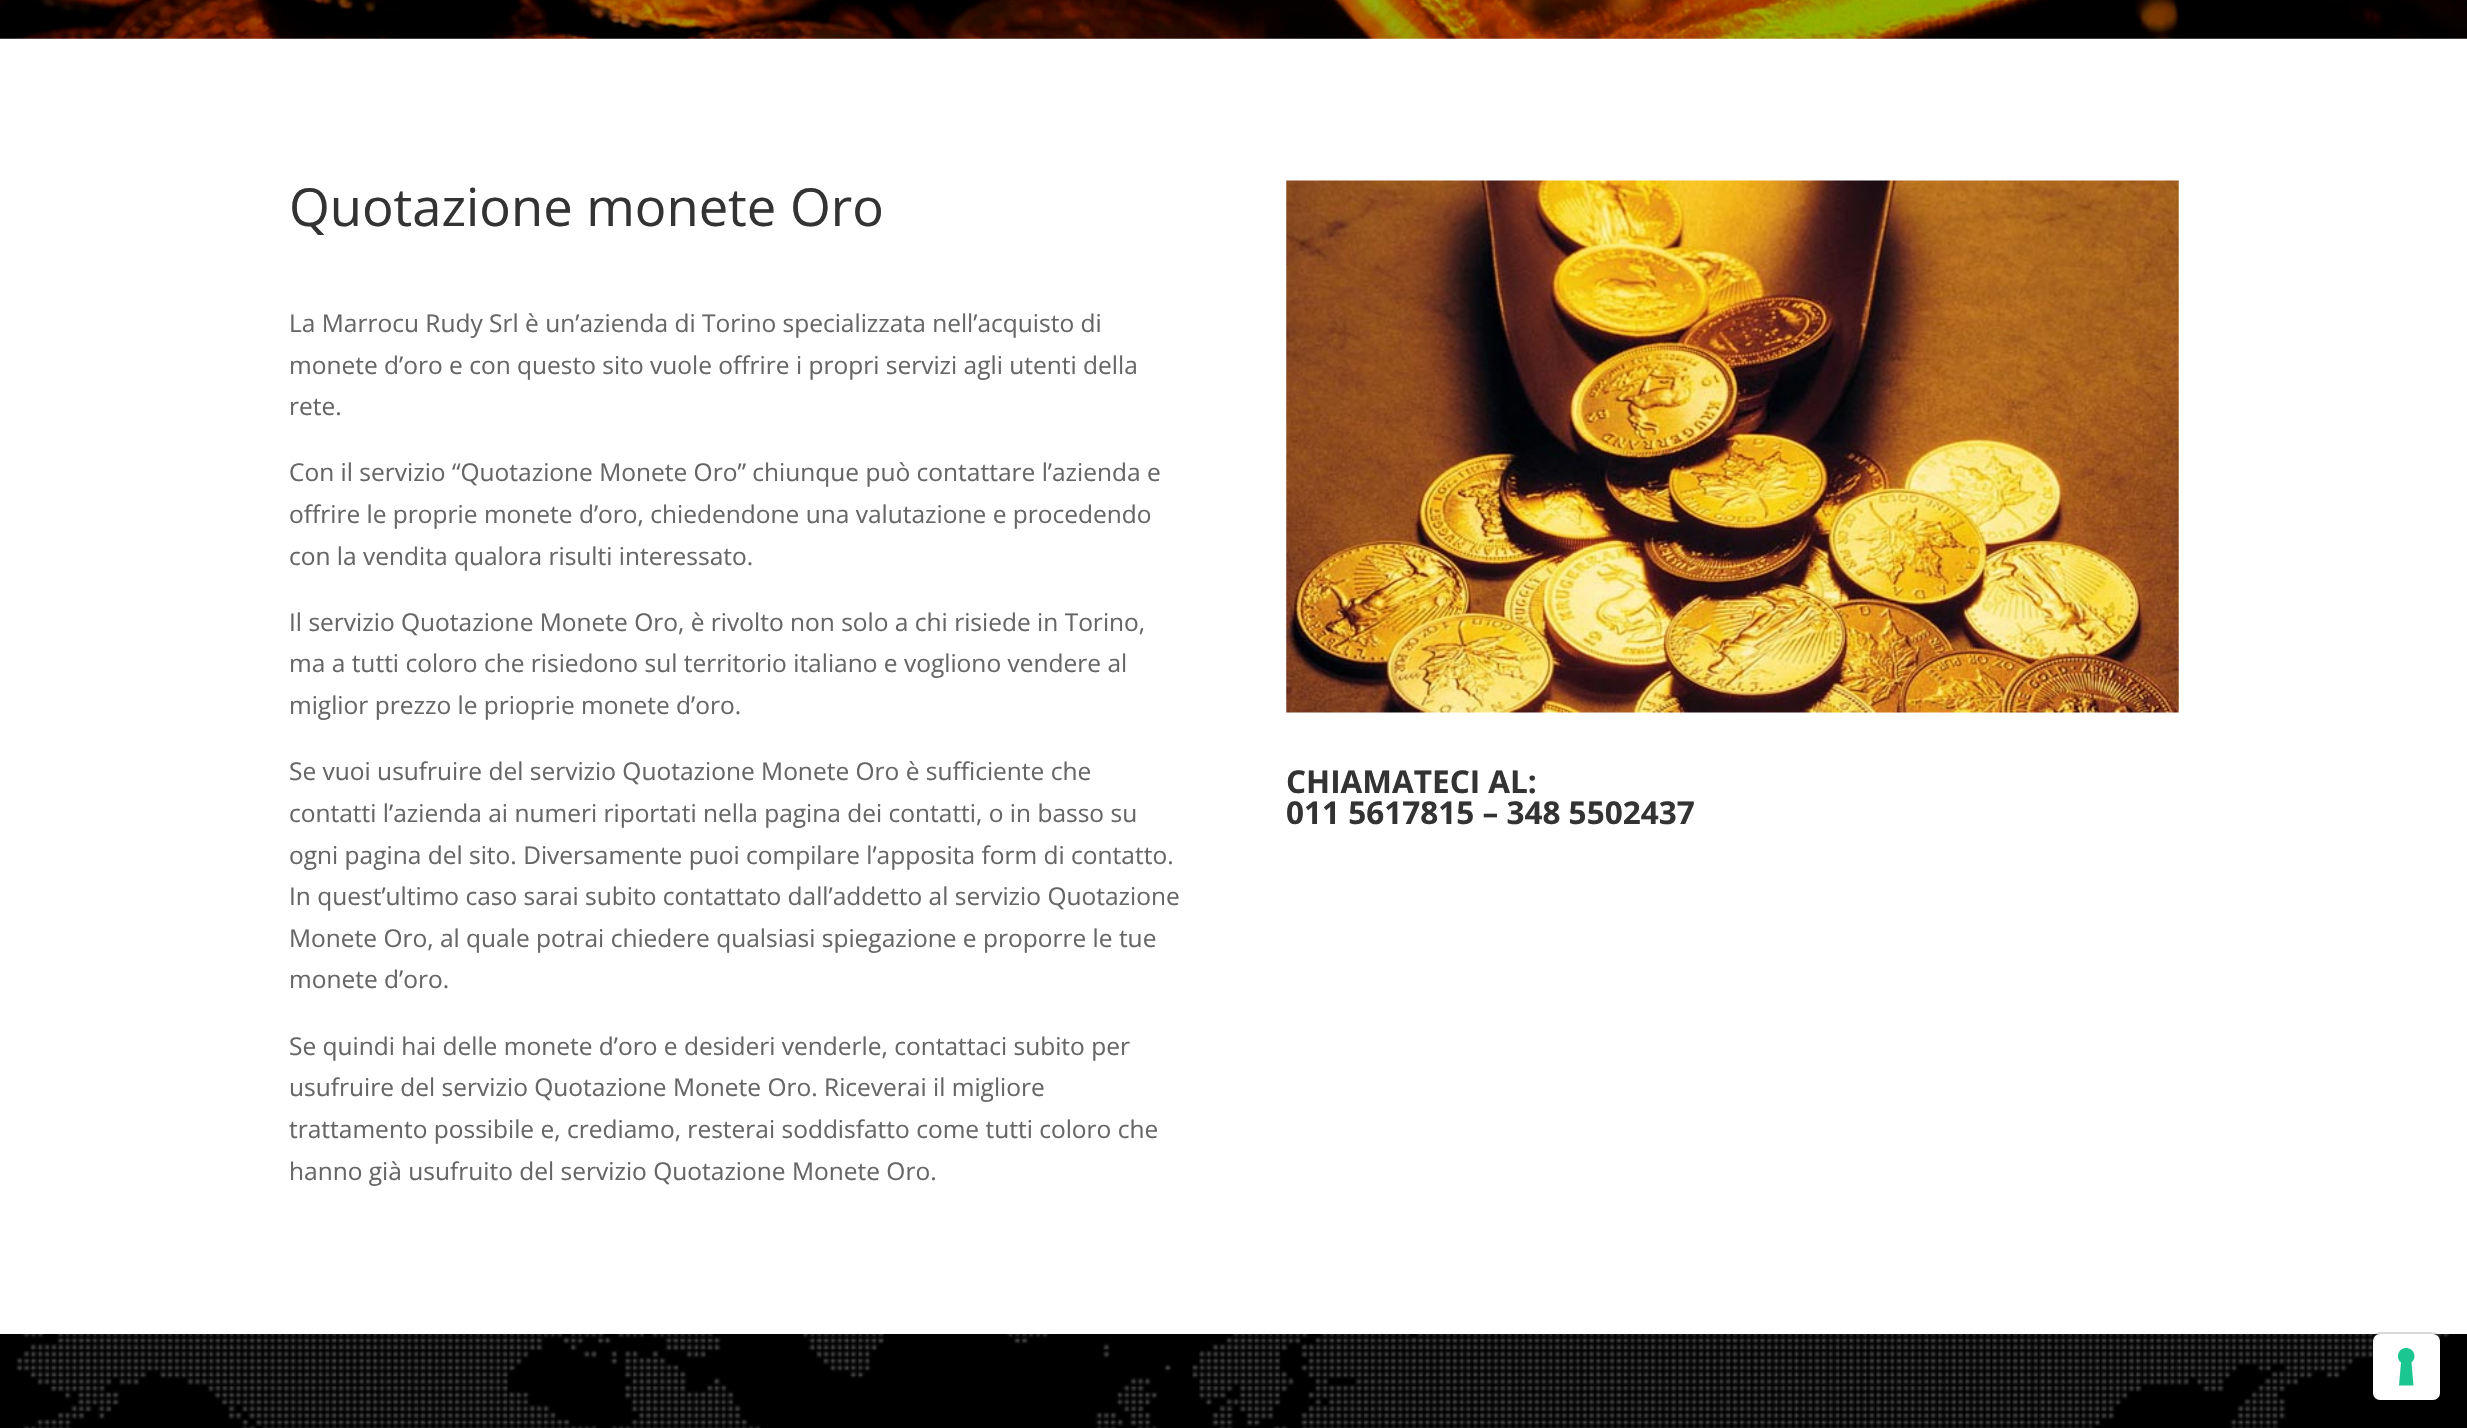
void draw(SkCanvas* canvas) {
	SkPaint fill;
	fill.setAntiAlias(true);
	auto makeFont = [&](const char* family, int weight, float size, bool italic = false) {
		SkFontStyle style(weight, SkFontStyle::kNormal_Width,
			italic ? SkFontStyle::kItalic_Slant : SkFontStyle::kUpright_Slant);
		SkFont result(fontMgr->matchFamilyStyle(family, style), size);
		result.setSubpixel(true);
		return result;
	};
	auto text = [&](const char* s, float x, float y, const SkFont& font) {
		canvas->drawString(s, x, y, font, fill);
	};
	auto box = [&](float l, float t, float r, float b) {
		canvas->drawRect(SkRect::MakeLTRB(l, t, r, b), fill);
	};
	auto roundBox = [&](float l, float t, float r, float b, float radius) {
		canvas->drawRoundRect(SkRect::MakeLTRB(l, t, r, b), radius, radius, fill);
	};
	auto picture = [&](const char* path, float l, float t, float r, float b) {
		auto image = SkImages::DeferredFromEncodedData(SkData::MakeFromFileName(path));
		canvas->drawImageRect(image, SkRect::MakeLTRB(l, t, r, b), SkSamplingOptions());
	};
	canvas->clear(0xFFFFFFFF);
	picture("image0.png", 0, 0, 2467, 39);
	picture("image1.png", 1286, 180, 2179, 713);
	fill.setColor(0xFF000000);
	box(0, 1334, 2467, 1428);
	picture("image2.png", 16, 1334, 2450, 1428);
	fill.setStyle(SkPaint::kStroke_Style);
	fill.setStrokeWidth(2);
	fill.setColor(0x26000000);
	canvas->drawRoundRect(SkRect::MakeLTRB(2372, 1333, 2440, 1401), 8, 8, fill);
	fill.setStyle(SkPaint::kFill_Style);
	fill.setColor(0xFFFFFFFF);
	roundBox(2373, 1334, 2440, 1400, 7);
	fill.setColor(0xFF1CC691);
	canvas->drawPath(SkPathBuilder(SkPathFillType::kEvenOdd).moveTo(2406, 1348).cubicTo(2414, 1348, 2417.5f, 1357.5f, 2411.5f, 1362.5f).lineTo(2413.5f, 1385.5f).lineTo(2399, 1385.5f).lineTo(2401, 1362.5f).cubicTo(2395, 1357.5f, 2398.5f, 1348, 2406, 1348).close().detach(), fill);
	auto font1 = makeFont("Open Sans", 400, 52.5f);
	fill.setColor(0xFF333333);
	text("Quotazione monete Oro", 289, 226, font1);
	auto font2 = makeFont("Open Sans", 400, 24.5f);
	fill.setColor(0xFF666666);
	text("La Marrocu Rudy Srl è un’azienda di Torino specializzata nell’acquisto di", 289, 332, font2);
	text("monete d’oro e con questo sito vuole offrire i propri servizi agli utenti della", 289, 374, font2);
	text("rete.", 289, 415, font2);
	text("Con il servizio “Quotazione Monete Oro” chiunque può contattare l’azienda e", 289, 481, font2);
	text("offrire le proprie monete d’oro, chiedendone una valutazione e procedendo", 289, 523, font2);
	text("con la vendita qualora risulti interessato.", 289, 565, font2);
	text("Il servizio Quotazione Monete Oro, è rivolto non solo a chi risiede in Torino,", 289, 631, font2);
	text("ma a tutti coloro che risiedono sul territorio italiano e vogliono vendere al", 289, 672, font2);
	text("miglior prezzo le prioprie monete d’oro.", 289, 714, font2);
	text("Se vuoi usufruire del servizio Quotazione Monete Oro è sufficiente che", 289, 780, font2);
	text("contatti l’azienda ai numeri riportati nella pagina dei contatti, o in basso su", 289, 822, font2);
	text("ogni pagina del sito. Diversamente puoi compilare l’apposita form di contatto.", 289, 864, font2);
	text("In quest’ultimo caso sarai subito contattato dall’addetto al servizio Quotazione", 289, 905, font2);
	text("Monete Oro, al quale potrai chiedere qualsiasi spiegazione e proporre le tue", 289, 947, font2);
	text("monete d’oro.", 289, 988, font2);
	text("Se quindi hai delle monete d’oro e desideri venderle, contattaci subito per", 289, 1055, font2);
	text("usufruire del servizio Quotazione Monete Oro. Riceverai il migliore", 289, 1096, font2);
	text("trattamento possibile e, crediamo, resterai soddisfatto come tutti coloro che", 289, 1138, font2);
	text("hanno già usufruito del servizio Quotazione Monete Oro.", 289, 1180, font2);
	auto font3 = makeFont("Open Sans", 700, 31.5f);
	fill.setColor(0xFF333333);
	text("CHIAMATECI AL:", 1286, 793, font3);
	text("011 5617815 – 348 5502437", 1286, 824, font3);
}
